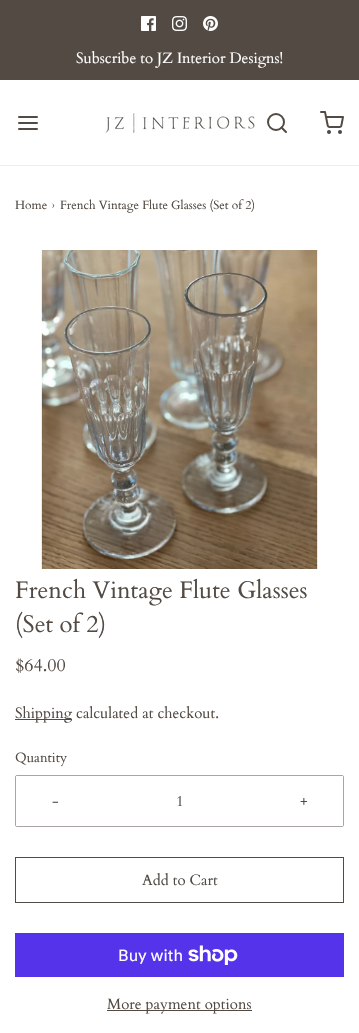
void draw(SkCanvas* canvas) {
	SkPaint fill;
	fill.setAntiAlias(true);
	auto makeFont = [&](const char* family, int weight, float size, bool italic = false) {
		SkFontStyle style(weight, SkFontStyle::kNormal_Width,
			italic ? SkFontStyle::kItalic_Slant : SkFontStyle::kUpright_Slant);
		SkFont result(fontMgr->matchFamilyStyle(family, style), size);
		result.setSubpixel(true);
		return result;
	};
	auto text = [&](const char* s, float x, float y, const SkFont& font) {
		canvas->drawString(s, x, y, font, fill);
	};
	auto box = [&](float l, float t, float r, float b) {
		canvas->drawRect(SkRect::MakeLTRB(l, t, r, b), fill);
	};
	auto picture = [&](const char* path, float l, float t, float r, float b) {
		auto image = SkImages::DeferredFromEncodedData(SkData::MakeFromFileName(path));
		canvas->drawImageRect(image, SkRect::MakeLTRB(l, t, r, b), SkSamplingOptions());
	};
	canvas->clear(0xFFFFFFFF);
	fill.setColor(0xFF524A43);
	box(0, 0, 359, 80);
	picture("image0.png", 141, 16, 156, 31);
	picture("image1.png", 172, 16, 187, 31);
	picture("image2.png", 203, 16, 218, 31);
	fill.setColor(0xFFEEEDEC);
	box(0, 165, 359, 166);
	fill.setStyle(SkPaint::kStroke_Style);
	fill.setStrokeWidth(2);
	fill.setStrokeCap(SkPaint::kRound_Cap);
	fill.setStrokeJoin(SkPaint::kRound_Join);
	fill.setColor(0xFF524A43);
	canvas->drawPath(SkPathBuilder().moveTo(19, 123).lineTo(37, 123).moveTo(19, 117).lineTo(37, 117).moveTo(19, 129).lineTo(37, 129).detach(), fill);
	picture("image3.png", 105, 113, 255, 133);
	fill.setStrokeCap(SkPaint::kButt_Cap);
	fill.setStrokeJoin(SkPaint::kMiter_Join);
	canvas->drawCircle(276, 122, 8, fill);
	fill.setStrokeCap(SkPaint::kRound_Cap);
	fill.setStrokeJoin(SkPaint::kRound_Join);
	canvas->drawPath(SkPathBuilder().moveTo(286, 132).lineTo(281.5f, 127.5f).detach(), fill);
	picture("image4.png", 320, 111, 344, 134);
	picture("image5.png", 40, 250, 318, 569);
	fill.setStyle(SkPaint::kFill_Style);
	box(15, 719, 72, 720);
	fill.setStyle(SkPaint::kStroke_Style);
	fill.setStrokeWidth(1);
	fill.setStrokeCap(SkPaint::kButt_Cap);
	fill.setStrokeJoin(SkPaint::kMiter_Join);
	fill.setColor(0xFFA9A5A1);
	canvas->drawRoundRect(SkRect::MakeLTRB(15.5f, 775.5f, 343.5f, 826.5f), 1.5f, 1.5f, fill);
	fill.setStyle(SkPaint::kFill_Style);
	fill.setColor(0xFFFFFFFF);
	box(16, 776, 17, 826);
	box(342, 776, 343, 826);
	fill.setStyle(SkPaint::kStroke_Style);
	fill.setColor(0xFF524A43);
	canvas->drawRect(SkRect::MakeLTRB(15.5f, 857.5f, 343.5f, 902.5f), fill);
	fill.setStyle(SkPaint::kFill_Style);
	fill.setColor(0xFF5433EB);
	box(15, 933, 344, 977);
	picture("image6.png", 188, 945, 238, 965);
	fill.setColor(0xFF524A43);
	box(107, 1010, 252, 1011);
	auto font1 = makeFont("Cardo", 400, 15);
	fill.setColor(0xFFFFFFFF);
	text("Subscribe to JZ Interior Designs!", 76, 63, font1);
	auto font2 = makeFont("Cardo", 400, 12);
	fill.setColor(0xFF524A43);
	text("Home", 15, 209, font2);
	text("›", 52, 209, font2);
	text("French Vintage Flute Glasses (Set of 2)", 60, 209, font2);
	auto font3 = makeFont("Cardo", 400, 24);
	text("French Vintage Flute Glasses", 15, 598, font3);
	text("(Set of 2)", 15, 632, font3);
	auto font4 = makeFont("Cardo", 400, 18);
	text("$64.00", 15, 671, font4);
	text("Shipping calculated at checkout.", 15, 718, font1);
	auto font5 = makeFont("Cardo", 400, 13.5f);
	text("Quantity", 15, 762, font5);
	text("-", 52, 806, font1);
	text("1", 176, 806, font1);
	text("+", 300, 806, font1);
	text("Add to Cart", 142, 885, font1);
	auto font6 = makeFont("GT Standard", 400, 16);
	fill.setColor(0xFFFFFFFF);
	text("Buy with", 118, 961, font6);
	fill.setColor(0xFF524A43);
	text("More payment options", 107, 1009, font1);
}
